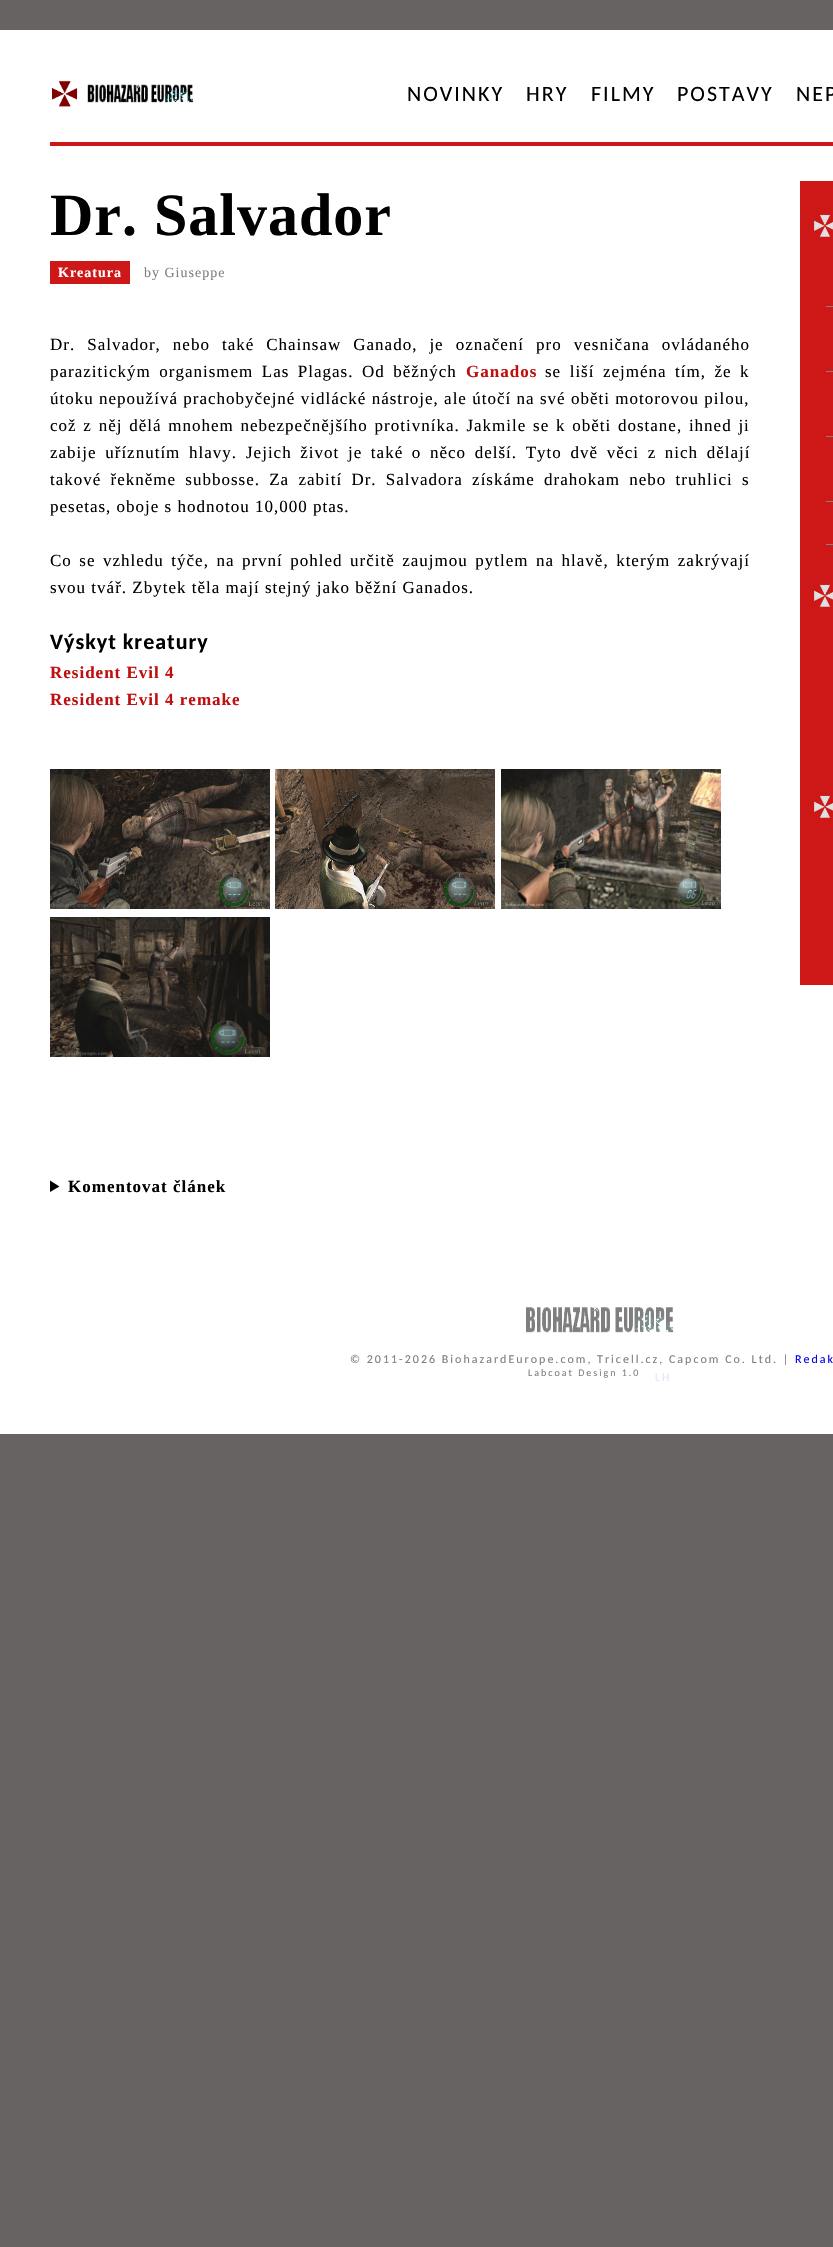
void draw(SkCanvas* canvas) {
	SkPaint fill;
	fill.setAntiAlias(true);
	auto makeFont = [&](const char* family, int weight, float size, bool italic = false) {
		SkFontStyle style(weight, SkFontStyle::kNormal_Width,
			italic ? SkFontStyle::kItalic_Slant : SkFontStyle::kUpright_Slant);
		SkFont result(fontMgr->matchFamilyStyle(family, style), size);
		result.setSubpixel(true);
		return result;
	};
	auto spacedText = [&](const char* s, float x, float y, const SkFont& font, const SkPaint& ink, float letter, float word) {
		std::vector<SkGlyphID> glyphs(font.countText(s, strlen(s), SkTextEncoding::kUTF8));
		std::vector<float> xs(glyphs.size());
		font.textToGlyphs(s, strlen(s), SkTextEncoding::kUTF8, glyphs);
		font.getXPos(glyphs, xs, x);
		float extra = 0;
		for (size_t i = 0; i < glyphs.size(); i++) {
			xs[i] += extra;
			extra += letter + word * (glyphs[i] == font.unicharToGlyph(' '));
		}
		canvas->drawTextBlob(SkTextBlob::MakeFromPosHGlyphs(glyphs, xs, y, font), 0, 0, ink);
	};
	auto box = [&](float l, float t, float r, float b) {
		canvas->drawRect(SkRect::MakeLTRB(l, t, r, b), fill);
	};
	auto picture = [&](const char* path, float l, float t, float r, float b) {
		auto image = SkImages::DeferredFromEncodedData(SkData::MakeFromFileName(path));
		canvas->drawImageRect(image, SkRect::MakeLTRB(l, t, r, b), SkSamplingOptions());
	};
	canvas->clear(0xFF686363);
	fill.setColor(0xFFFFFFFF);
	box(0, 30, 833, 1434);
	picture("image0.png", 52, 80, 193, 107);
	fill.setColor(0xFFCE1818);
	box(50, 142, 833, 146);
	box(50, 261, 130, 284);
	picture("image1.png", 50, 769, 270, 909);
	picture("image2.png", 275, 769, 495, 909);
	picture("image3.png", 501, 769, 721, 909);
	picture("image4.png", 50, 917, 270, 1057);
	fill.setColor(0xFF000000);
	canvas->drawPath(SkPathBuilder().moveTo(50, 1180.5f).lineTo(59.5f, 1186.5f).lineTo(50, 1192).close().detach(), fill);
	fill.setColor(0xFFCE1818);
	box(800, 181, 833, 985);
	picture("image5.png", 814, 214, 833, 237);
	fill.setColor(0xFF808080);
	box(825, 306, 833, 307);
	fill.setColor(0xFFCE1818);
	box(825, 306, 826, 307);
	fill.setColor(0xFF808080);
	box(825, 371, 833, 372);
	fill.setColor(0xFFCE1818);
	box(825, 371, 826, 372);
	fill.setColor(0xFF808080);
	box(825, 436, 833, 437);
	fill.setColor(0xFFCE1818);
	box(825, 436, 826, 437);
	fill.setColor(0xFF808080);
	box(825, 501, 833, 502);
	fill.setColor(0xFFCE1818);
	box(825, 501, 826, 502);
	fill.setColor(0xFF808080);
	box(825, 544, 833, 545);
	fill.setColor(0xFFCE1818);
	box(825, 544, 826, 545);
	picture("image5.png", 814, 584, 833, 607);
	picture("image5.png", 814, 795, 833, 818);
	picture("image6.png", 526, 1307, 674, 1333);
	auto font1 = makeFont("Carlito", 400, 22);
	fill.setColor(0xFF000000);
	spacedText("NOVINKY", 407, 101, font1, fill, 2, 0);
	spacedText("HRY", 526, 101, font1, fill, 2, 0);
	spacedText("FILMY", 591, 101, font1, fill, 2, 0);
	spacedText("POSTAVY", 677, 101, font1, fill, 2, 0);
	spacedText("NEP", 796, 101, font1, fill, 2, 0);
	auto font2 = makeFont("Liberation Serif", 700, 60);
	spacedText("Dr. Salvador", 50, 235, font2, fill, 1, 0);
	auto font3 = makeFont("Liberation Serif", 700, 14);
	fill.setColor(0xFFFFFFFF);
	spacedText("Kreatura", 58, 277, font3, fill, 1, 0);
	auto font4 = makeFont("Liberation Serif", 400, 14);
	fill.setColor(0xFF808080);
	spacedText("by Giuseppe", 144, 277, font4, fill, 1, 0);
	auto font5 = makeFont("Liberation Serif", 400, 17);
	fill.setColor(0xFF000000);
	spacedText("Dr. Salvador, nebo také Chainsaw Ganado, je označení pro vesničana ovládaného", 50, 350, font5, fill, 1, 6.75f);
	spacedText("parazitickým organismem Las Plagas. Od běžných", 50, 377, font5, fill, 1, 3.25f);
	auto font6 = makeFont("Liberation Serif", 700, 17);
	fill.setColor(0xFFBF0F0F);
	spacedText("Ganados", 466, 377, font6, fill, 1, 0);
	fill.setColor(0xFF000000);
	spacedText("se liší zejména tím, že k", 545, 377, font5, fill, 1, 3.25f);
	spacedText("útoku nepoužívá prachobyčejné vidlácké nástroje, ale útočí na své oběti motorovou pilou,", 50, 404, font5, fill, 1, 0.1f);
	spacedText("což z něj dělá mnohem nebezpečnějšího protivníka. Jakmile se k oběti dostane, ihned ji", 50, 431, font5, fill, 1, 1.5f);
	spacedText("zabije uříznutím hlavy.", 50, 458, font5, fill, 1, 3.4f);
	spacedText("Jejich život je také o něco delší. Tyto dvě věci z nich dělají", 246, 458, font5, fill, 1, 3.4f);
	spacedText("takové řekněme subbosse. Za zabití Dr. Salvadora získáme drahokam nebo truhlici s", 50, 485, font5, fill, 1, 4);
	spacedText("pesetas, oboje s hodnotou 10,000 ptas.", 50, 512, font5, fill, 1, 0);
	spacedText("Co se vzhledu týče, na první pohled určitě zaujmou pytlem na hlavě, kterým zakrývají", 50, 566, font5, fill, 1, 2.25f);
	spacedText("svou tvář. Zbytek těla mají stejný jako běžní Ganados.", 50, 593, font5, fill, 1, 0);
	auto font7 = makeFont("Carlito", 700, 22);
	spacedText("Výskyt kreatury", 50, 649, font7, fill, 1, 0);
	fill.setColor(0xFFBF0F0F);
	spacedText("Resident Evil 4", 50, 678, font6, fill, 1, 0);
	spacedText("Resident Evil 4 remake", 50, 705, font6, fill, 1, 0);
	fill.setColor(0xFF000000);
	spacedText("Komentovat článek", 68, 1192, font6, fill, 1, 0);
	auto font8 = makeFont("Carlito", 400, 12);
	fill.setColor(0xFF808080);
	spacedText("© 2011-2026 BiohazardEurope.com, Tricell.cz, Capcom Co. Ltd. |", 350, 1363, font8, fill, 2, 0);
	fill.setColor(0xFF0000EE);
	spacedText("Redak", 795, 1363, font8, fill, 2, 0);
	auto font9 = makeFont("Carlito", 400, 10);
	fill.setColor(0xFF808080);
	spacedText("Labcoat Design 1.0", 528, 1376, font9, fill, 2, 0);
	fill.setColor(0xFFE6E6FD);
	spacedText("LH", 655, 1381, font8, fill, 2, 0);
}
